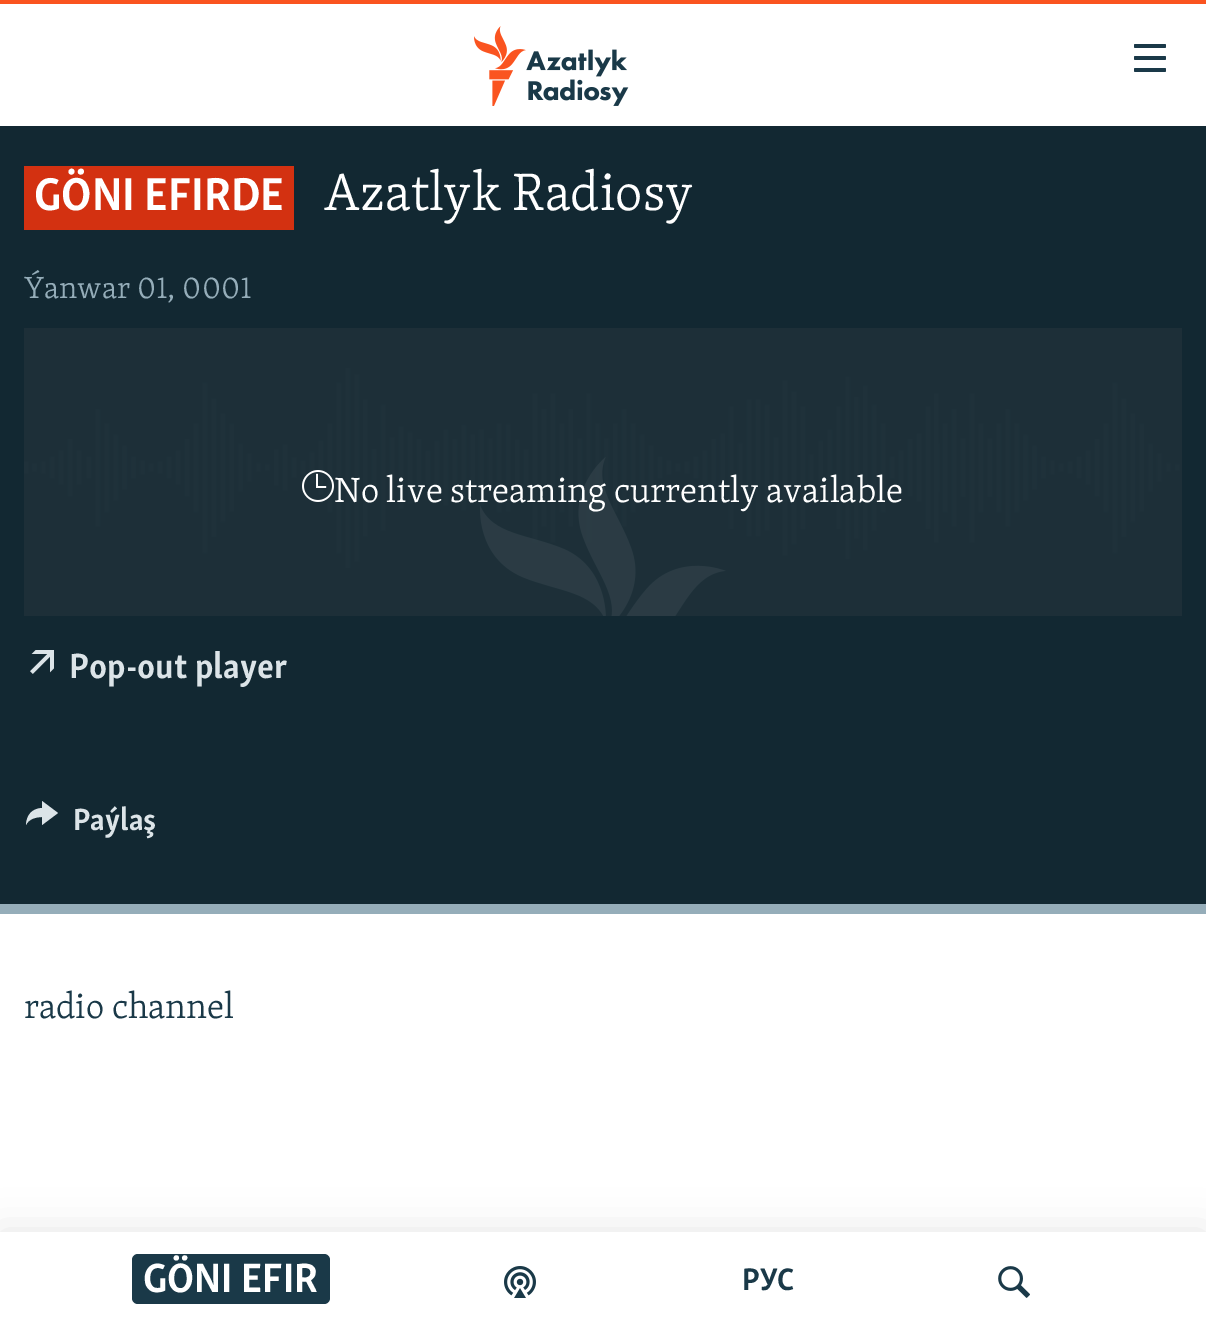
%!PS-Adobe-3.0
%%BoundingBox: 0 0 1206 1332
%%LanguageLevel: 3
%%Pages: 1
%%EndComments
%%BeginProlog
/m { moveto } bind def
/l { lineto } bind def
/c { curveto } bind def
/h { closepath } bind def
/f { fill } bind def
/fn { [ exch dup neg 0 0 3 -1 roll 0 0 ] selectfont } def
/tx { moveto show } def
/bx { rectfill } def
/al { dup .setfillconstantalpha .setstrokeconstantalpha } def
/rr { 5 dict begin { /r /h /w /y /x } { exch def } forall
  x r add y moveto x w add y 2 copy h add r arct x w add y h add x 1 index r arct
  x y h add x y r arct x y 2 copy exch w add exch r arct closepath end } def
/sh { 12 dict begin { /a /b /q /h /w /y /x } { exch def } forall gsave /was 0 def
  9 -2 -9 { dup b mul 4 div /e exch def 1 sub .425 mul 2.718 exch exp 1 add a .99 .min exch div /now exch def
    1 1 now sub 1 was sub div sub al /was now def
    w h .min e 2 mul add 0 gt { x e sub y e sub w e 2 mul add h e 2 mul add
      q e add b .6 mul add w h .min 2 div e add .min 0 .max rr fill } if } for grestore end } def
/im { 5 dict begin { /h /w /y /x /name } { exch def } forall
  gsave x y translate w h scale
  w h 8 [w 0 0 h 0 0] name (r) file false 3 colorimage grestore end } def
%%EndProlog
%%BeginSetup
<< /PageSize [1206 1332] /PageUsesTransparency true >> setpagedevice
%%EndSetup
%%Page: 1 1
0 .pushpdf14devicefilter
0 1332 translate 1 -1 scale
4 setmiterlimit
1 setgray
0 0 1206 1332 bx
0.071 0.157 0.196 setrgbcolor
0 126 1206 778 bx
0.584 0.678 0.725 setrgbcolor
0 904 1206 10 bx
0.827 0.192 0.067 setrgbcolor
24 166 270 64 bx
/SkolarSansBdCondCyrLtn-Bold 47.25 fn
1 setgray
(GÖNI EFIRDE) 34 210 tx
/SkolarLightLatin-Light 54 fn
(Azatlyk Radiosy) 324 210 tx
/SkolarLightLatin-Light 31.5 fn
0.584 0.678 0.725 setrgbcolor
(Ýanwar 01, 0001) 24 298 tx
0.114 0.184 0.22 setrgbcolor
24 328 1158 288 bx
(image0.raw) 24 368 1156 200 im
(image1.raw) 480 457 246 159 im
(image2.raw) 302 470 32 32 im
/SkolarLightLatin-Light 36 fn
1 setgray
(No live streaming currently available) 334 502 tx
(image3.raw) 30 650 24 24 im
/SkolarSansBdCondCyrLtn-Bold 36 fn
0.863 0.894 0.91 setrgbcolor
(Pop-out player) 69 678 tx
26 825 m 26.5 815 32 808.5 42 808 c 42 801 l 58 813 l 42 825 l 42 817 l 36 817 28.5 819 26 825 c h f
/SkolarSansBdCondCyrLtn-Bold 31.5 fn
(Paýlaş) 73 830 tx
/SkolarLightLatin-Light 36 fn
0.102 0.224 0.282 setrgbcolor
(radio channel) 24 1018 tx
0.98 0.329 0.125 setrgbcolor
0 0 1206 4 bx
(image4.raw) 474 26 155 80 im
(image5.raw) 1134 44 32 28 im
0 setgray
0 1232 1206 100 0 20 0.1 sh
1 setgray
0 1232 1206 100 bx
0.102 0.224 0.282 setrgbcolor
132 1254 198 50 6 rr f
/SkolarSansBdCondCyrLtn-Bold 42 fn
1 setgray
(GÖNI EFIR) 143 1292 tx
(image6.raw) 504 1266 32 32 im
/SkolarSansBdCondCyrLtn-Bold 32 fn
0.102 0.224 0.282 setrgbcolor
(РУС) 742 1290 tx
(image7.raw) 998 1266 32 32 im
.poppdf14devicefilter showpage
%%EOF
